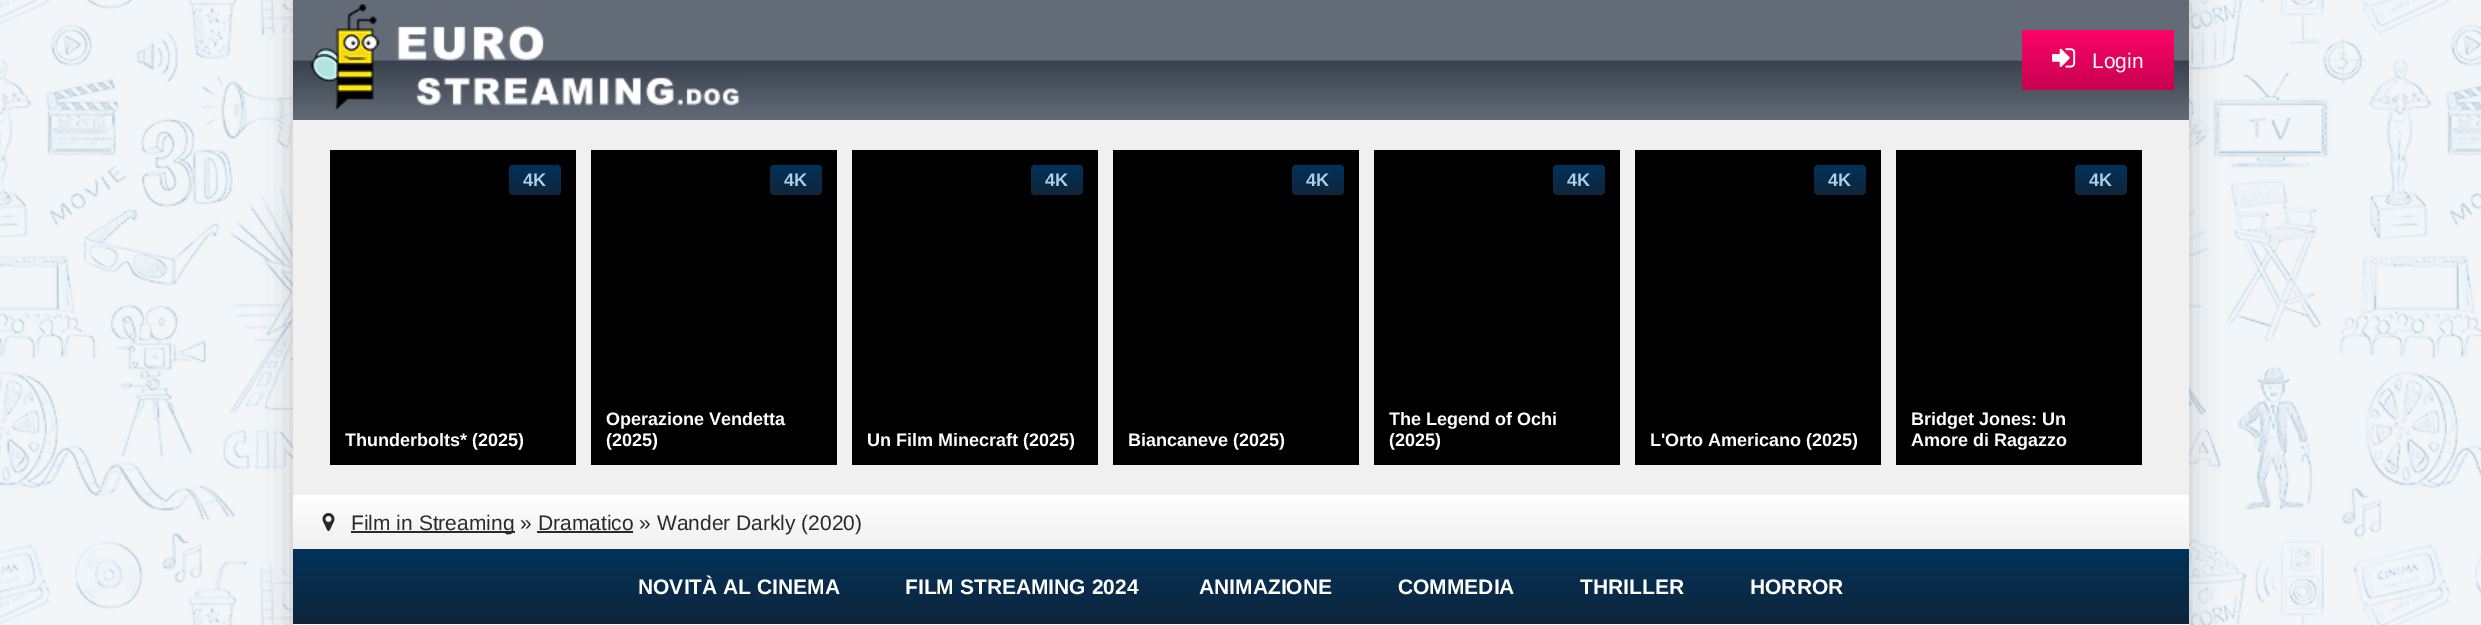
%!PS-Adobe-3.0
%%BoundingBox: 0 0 2481 625
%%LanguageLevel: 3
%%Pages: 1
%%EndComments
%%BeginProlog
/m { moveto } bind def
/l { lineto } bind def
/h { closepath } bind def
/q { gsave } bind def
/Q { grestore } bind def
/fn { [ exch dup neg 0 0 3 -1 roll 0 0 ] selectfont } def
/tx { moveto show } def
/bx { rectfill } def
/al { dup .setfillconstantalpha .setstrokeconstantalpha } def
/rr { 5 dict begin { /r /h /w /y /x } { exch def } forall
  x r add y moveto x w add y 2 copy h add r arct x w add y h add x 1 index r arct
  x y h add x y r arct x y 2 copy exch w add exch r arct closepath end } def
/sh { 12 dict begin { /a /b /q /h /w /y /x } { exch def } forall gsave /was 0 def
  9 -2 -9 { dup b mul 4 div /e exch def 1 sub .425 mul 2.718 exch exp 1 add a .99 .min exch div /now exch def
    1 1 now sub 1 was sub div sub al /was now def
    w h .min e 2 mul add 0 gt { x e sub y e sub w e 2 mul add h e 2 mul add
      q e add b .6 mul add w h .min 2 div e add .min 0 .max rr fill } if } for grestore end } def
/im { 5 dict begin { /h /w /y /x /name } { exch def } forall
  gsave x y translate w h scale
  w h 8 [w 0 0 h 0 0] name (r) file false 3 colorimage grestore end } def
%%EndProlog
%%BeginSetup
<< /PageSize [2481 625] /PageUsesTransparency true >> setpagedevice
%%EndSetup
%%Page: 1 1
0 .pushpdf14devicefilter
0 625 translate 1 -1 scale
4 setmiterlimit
1 setgray
0 0 2481 625 bx
(image0.raw) 0 0 2481 625 im
0 setgray
293 0 1896 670 0 15 0.2 sh
1 setgray
293 624 1896 1 bx
q 293 0 m 2189 0 l 2189 120 l 293 120 l h clip newpath
<< /ShadingType 2 /ColorSpace /DeviceRGB /Coords [1241 0 1241 120] /Extend [true true] /Function << /FunctionType 3 /Domain [0 1] /Functions [<< /FunctionType 2 /Domain [0 1] /C0 [0.388 0.42 0.467] /C1 [0.388 0.42 0.467] /N 1 >> << /FunctionType 2 /Domain [0 1] /C0 [0.388 0.42 0.467] /C1 [0.224 0.255 0.306] /N 1 >> << /FunctionType 2 /Domain [0 1] /C0 [0.224 0.255 0.306] /C1 [0.388 0.42 0.467] /N 1 >>] /Bounds [0.5 0.51] /Encode [0 1 0 1 0 1] >> >> shfill Q
(image1.raw) 310 4 430 106 im
q 2022 30 m 2174 30 l 2174 90 l 2022 90 l h clip newpath
<< /ShadingType 2 /ColorSpace /DeviceRGB /Coords [2098 30 2098 90] /Extend [true true] /Function << /FunctionType 2 /Domain [0 1] /C0 [0.984 0.02 0.408] /C1 [0.784 0.004 0.318] /N 1 >> >> shfill Q
(image2.raw) 2052 48 24 20 im
/LiberationSans-Regular 21 fn
(Login) 2092 68 tx
0.941 setgray
293 120 1896 375 bx
0 setgray
330 150 246 315 bx
q 509 165 52 30 6 rr clip newpath
<< /ShadingType 2 /ColorSpace /DeviceRGB /Coords [535 165 535 195] /Extend [true true] /Function << /FunctionType 2 /Domain [0 1] /C0 [0.008 0.196 0.353] /C1 [0.059 0.145 0.227] /N 1 >> >> shfill Q
/LiberationSans-Bold 18 fn
0.69 0.808 0.902 setrgbcolor
(4K) 523 186 tx
1 setgray
(Thunderbolts* \(2025\)) 345 446 tx
0 setgray
591 150 246 315 bx
q 770 165 52 30 6 rr clip newpath
<< /ShadingType 2 /ColorSpace /DeviceRGB /Coords [796 165 796 195] /Extend [true true] /Function << /FunctionType 2 /Domain [0 1] /C0 [0.008 0.196 0.353] /C1 [0.059 0.145 0.227] /N 1 >> >> shfill Q
0.69 0.808 0.902 setrgbcolor
(4K) 784 186 tx
1 setgray
(Operazione Vendetta) 606 425 tx
(\(2025\)) 606 446 tx
0 setgray
852 150 246 315 bx
q 1031 165 52 30 6 rr clip newpath
<< /ShadingType 2 /ColorSpace /DeviceRGB /Coords [1057 165 1057 195] /Extend [true true] /Function << /FunctionType 2 /Domain [0 1] /C0 [0.008 0.196 0.353] /C1 [0.059 0.145 0.227] /N 1 >> >> shfill Q
0.69 0.808 0.902 setrgbcolor
(4K) 1045 186 tx
1 setgray
(Un Film Minecraft \(2025\)) 867 446 tx
0 setgray
1113 150 246 315 bx
q 1292 165 52 30 6 rr clip newpath
<< /ShadingType 2 /ColorSpace /DeviceRGB /Coords [1318 165 1318 195] /Extend [true true] /Function << /FunctionType 2 /Domain [0 1] /C0 [0.008 0.196 0.353] /C1 [0.059 0.145 0.227] /N 1 >> >> shfill Q
0.69 0.808 0.902 setrgbcolor
(4K) 1306 186 tx
1 setgray
(Biancaneve \(2025\)) 1128 446 tx
0 setgray
1374 150 246 315 bx
q 1553 165 52 30 6 rr clip newpath
<< /ShadingType 2 /ColorSpace /DeviceRGB /Coords [1579 165 1579 195] /Extend [true true] /Function << /FunctionType 2 /Domain [0 1] /C0 [0.008 0.196 0.353] /C1 [0.059 0.145 0.227] /N 1 >> >> shfill Q
0.69 0.808 0.902 setrgbcolor
(4K) 1567 186 tx
1 setgray
(The Legend of Ochi) 1389 425 tx
(\(2025\)) 1389 446 tx
0 setgray
1635 150 246 315 bx
q 1814 165 52 30 6 rr clip newpath
<< /ShadingType 2 /ColorSpace /DeviceRGB /Coords [1840 165 1840 195] /Extend [true true] /Function << /FunctionType 2 /Domain [0 1] /C0 [0.008 0.196 0.353] /C1 [0.059 0.145 0.227] /N 1 >> >> shfill Q
0.69 0.808 0.902 setrgbcolor
(4K) 1828 186 tx
1 setgray
(L'Orto Americano \(2025\)) 1650 446 tx
0 setgray
1896 150 246 315 bx
q 2075 165 52 30 6 rr clip newpath
<< /ShadingType 2 /ColorSpace /DeviceRGB /Coords [2101 165 2101 195] /Extend [true true] /Function << /FunctionType 2 /Domain [0 1] /C0 [0.008 0.196 0.353] /C1 [0.059 0.145 0.227] /N 1 >> >> shfill Q
0.69 0.808 0.902 setrgbcolor
(4K) 2089 186 tx
1 setgray
(Bridget Jones: Un) 1911 425 tx
(Amore di Ragazzo) 1911 446 tx
q 293 495 m 2189 495 l 2189 549 l 293 549 l h clip newpath
<< /ShadingType 2 /ColorSpace /DeviceRGB /Coords [1241 495 1241 549] /Extend [true true] /Function << /FunctionType 2 /Domain [0 1] /C0 [1 1 1] /C1 [0.941 0.941 0.941] /N 1 >> >> shfill Q
(image3.raw) 322 513 13 18 im
0.165 setgray
351 531 164 2 bx
/LiberationSans-Regular 21 fn
(Film in Streaming » Dramatico » Wander Darkly \(2020\)) 351 530 tx
537 531 96 2 bx
q 293 549 m 2189 549 l 2189 624 l 293 624 l h clip newpath
<< /ShadingType 2 /ColorSpace /DeviceRGB /Coords [1241 549 1241 624] /Extend [true true] /Function << /FunctionType 2 /Domain [0 1] /C0 [0.008 0.196 0.353] /C1 [0.059 0.145 0.227] /N 1 >> >> shfill Q
/LiberationSans-Bold 21 fn
1 setgray
(NOVITÀ AL CINEMA) 638 594 tx
(FILM STREAMING 2024) 905 594 tx
(ANIMAZIONE) 1199 594 tx
(COMMEDIA) 1398 594 tx
(THRILLER) 1580 594 tx
(HORROR) 1750 594 tx
.poppdf14devicefilter showpage
%%EOF
